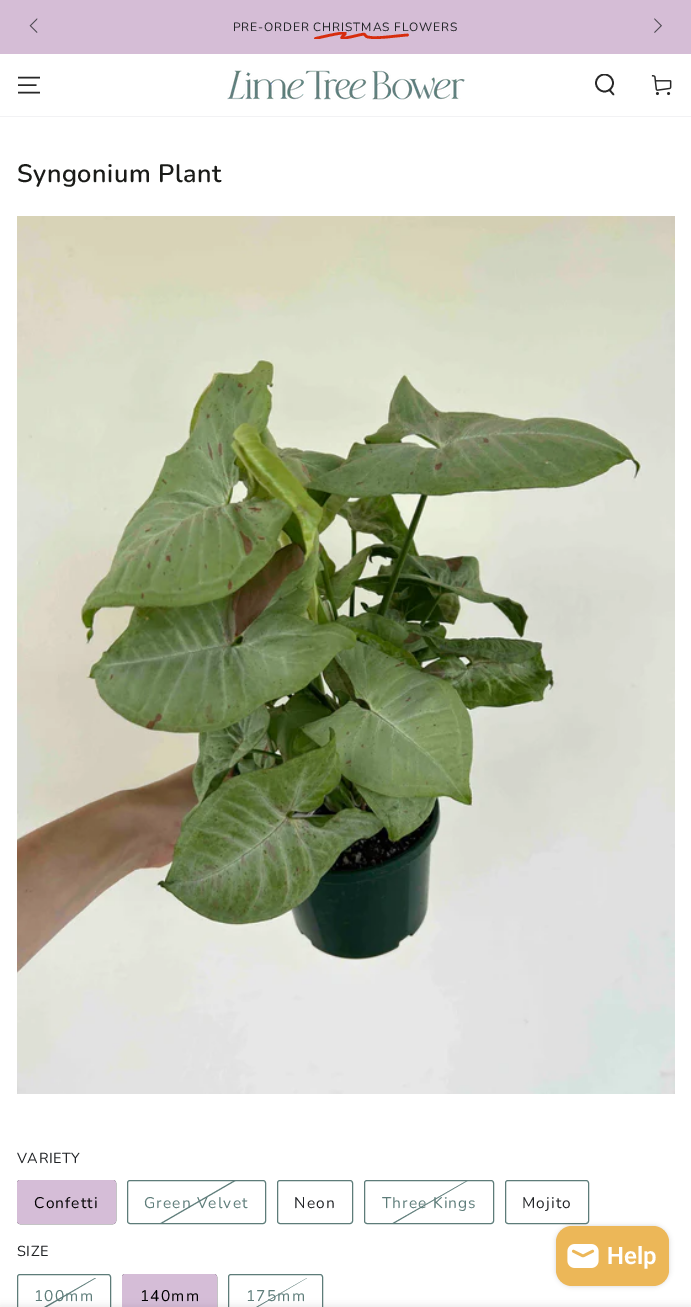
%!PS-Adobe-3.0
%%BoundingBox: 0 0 691 1307
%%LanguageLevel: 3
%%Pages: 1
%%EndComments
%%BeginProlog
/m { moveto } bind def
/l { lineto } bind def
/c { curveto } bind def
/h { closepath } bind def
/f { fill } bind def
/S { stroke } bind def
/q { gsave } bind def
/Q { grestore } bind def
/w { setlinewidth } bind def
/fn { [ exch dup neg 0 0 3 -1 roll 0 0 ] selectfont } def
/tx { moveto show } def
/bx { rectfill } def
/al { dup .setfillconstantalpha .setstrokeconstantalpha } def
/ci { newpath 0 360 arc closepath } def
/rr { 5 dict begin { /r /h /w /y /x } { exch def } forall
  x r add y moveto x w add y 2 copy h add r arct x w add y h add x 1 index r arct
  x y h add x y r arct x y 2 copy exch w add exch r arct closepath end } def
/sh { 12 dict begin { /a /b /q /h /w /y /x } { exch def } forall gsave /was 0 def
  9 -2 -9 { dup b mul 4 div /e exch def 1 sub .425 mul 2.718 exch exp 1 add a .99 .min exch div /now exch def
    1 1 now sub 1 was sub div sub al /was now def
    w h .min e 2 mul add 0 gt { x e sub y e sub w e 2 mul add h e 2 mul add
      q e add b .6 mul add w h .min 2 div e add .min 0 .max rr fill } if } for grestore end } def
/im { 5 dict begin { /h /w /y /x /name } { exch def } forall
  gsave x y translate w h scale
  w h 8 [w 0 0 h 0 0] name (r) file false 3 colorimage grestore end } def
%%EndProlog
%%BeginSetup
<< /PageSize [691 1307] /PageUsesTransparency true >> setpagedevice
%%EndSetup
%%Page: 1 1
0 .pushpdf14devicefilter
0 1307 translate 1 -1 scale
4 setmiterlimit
1 setgray
0 0 691 1307 bx
0.835 0.741 0.839 setrgbcolor
0 0 691 54 bx
(image0.raw) 29 18 9 15 im
(image1.raw) 654 18 8 15 im
/Nunito-ExtraLight 12 fn
0.129 0.137 0.149 setrgbcolor
233 31 m 0.85 0 (PRE-ORDER CHRISTMAS FLOWERS) ashow
q
313 32 145 7 rectclip
0.843 0.173 0.051 setrgbcolor
2.6 w
1 setlinecap
315.5 38.5 m 315.5 38.5 350 30 345 34 c 340 38.5 338.5 40 359 35 c 371.5 32 357 38.5 378.5 37.5 c 385.5 37.5 395 36 407.5 35 c S
Q
0.949 0.949 0.957 setrgbcolor
0 116 691 1 bx
0.157 setgray
1.5 w
18 92.5 m 40 92.5 l 18 85 m 36.5 85 l 18 77.5 m 40 77.5 l S
(image2.raw) 227 70 238 30 im
q
594 74 22 22 rectclip
1.7 w
604.5 83 8.5 ci S
Q
1.7 w
1 setlinecap
609.5 90 m 613.5 94.5 l S
(image3.raw) 651 75 21 21 im
/Nunito-SemiBold 25.25 fn
0.102 0.106 0.094 setrgbcolor
17 182 m 0.5 0 (Syngonium Plant) ashow
(image4.raw) 17 216 658 878 im
/Nunito-ExtraLight 14.5 fn
0.129 0.137 0.149 setrgbcolor
17 1163 m 0.5 0 (VARIETY) ashow
2 w
0 setlinecap
18 1181 97 42 2 rr S
0.835 0.741 0.843 setrgbcolor
17 1180 99 44 3 rr f
/Nunito-ExtraLight 15.5 fn
0 setgray
34 1208 m 1.1 0 (Confetti) ashow
0.365 0.486 0.475 setrgbcolor
1 w
127.5 1180.5 138 43 2.5 rr S
237 1180 m 161 1224 l 159 1224 l 235 1180 l h f
144 1208 m 1.1 0 (Green Velvet) ashow
277.5 1180.5 75 43 2.5 rr S
0.129 0.137 0.149 setrgbcolor
294 1208 m 1.1 0 (Neon) ashow
0.365 0.486 0.475 setrgbcolor
364.5 1180.5 129 43 2.5 rr S
469 1180 m 393 1224 l 391 1224 l 468 1180 l h f
382 1208 m 1.1 0 (Three Kings) ashow
505.5 1180.5 83 43 2.5 rr S
0.129 0.137 0.149 setrgbcolor
522 1208 m 1.1 0 (Mojito) ashow
/Nunito-ExtraLight 14.5 fn
17 1256 m 0.5 0 (SIZE) ashow
0.365 0.486 0.475 setrgbcolor
17.5 1274.5 93 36 2.5 rr S
32 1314 m 95 1278 l 96 1278 l 33 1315 l h f
/Nunito-ExtraLight 15.5 fn
34 1301 m 1.1 0 (100mm) ashow
0.129 0.137 0.149 setrgbcolor
2 w
123 1275 93 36 2 rr S
0.835 0.741 0.843 setrgbcolor
122 1274 95 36 3 rr f
0 setgray
140 1301 m 1.1 0 (140mm) ashow
0.365 0.486 0.475 setrgbcolor
1 w
228.5 1274.5 94 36 2.5 rr S
244 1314 m 307 1278 l 244 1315 l h f
246 1301 m 1.1 0 (175mm) ashow
0 setgray
556 1226 113 60 16 2.5 0.15 sh
0.925 0.718 0.345 setrgbcolor
556 1226 113 60 16 rr f
(image5.raw) 567 1244 32 24 im
/Roboto-SemiBold 24 fn
1 setgray
(Help) 607 1264 tx
0.129 0.137 0.149 setrgbcolor
0 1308 691 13 0 4.5 0.15 sh
.poppdf14devicefilter showpage
%%EOF
